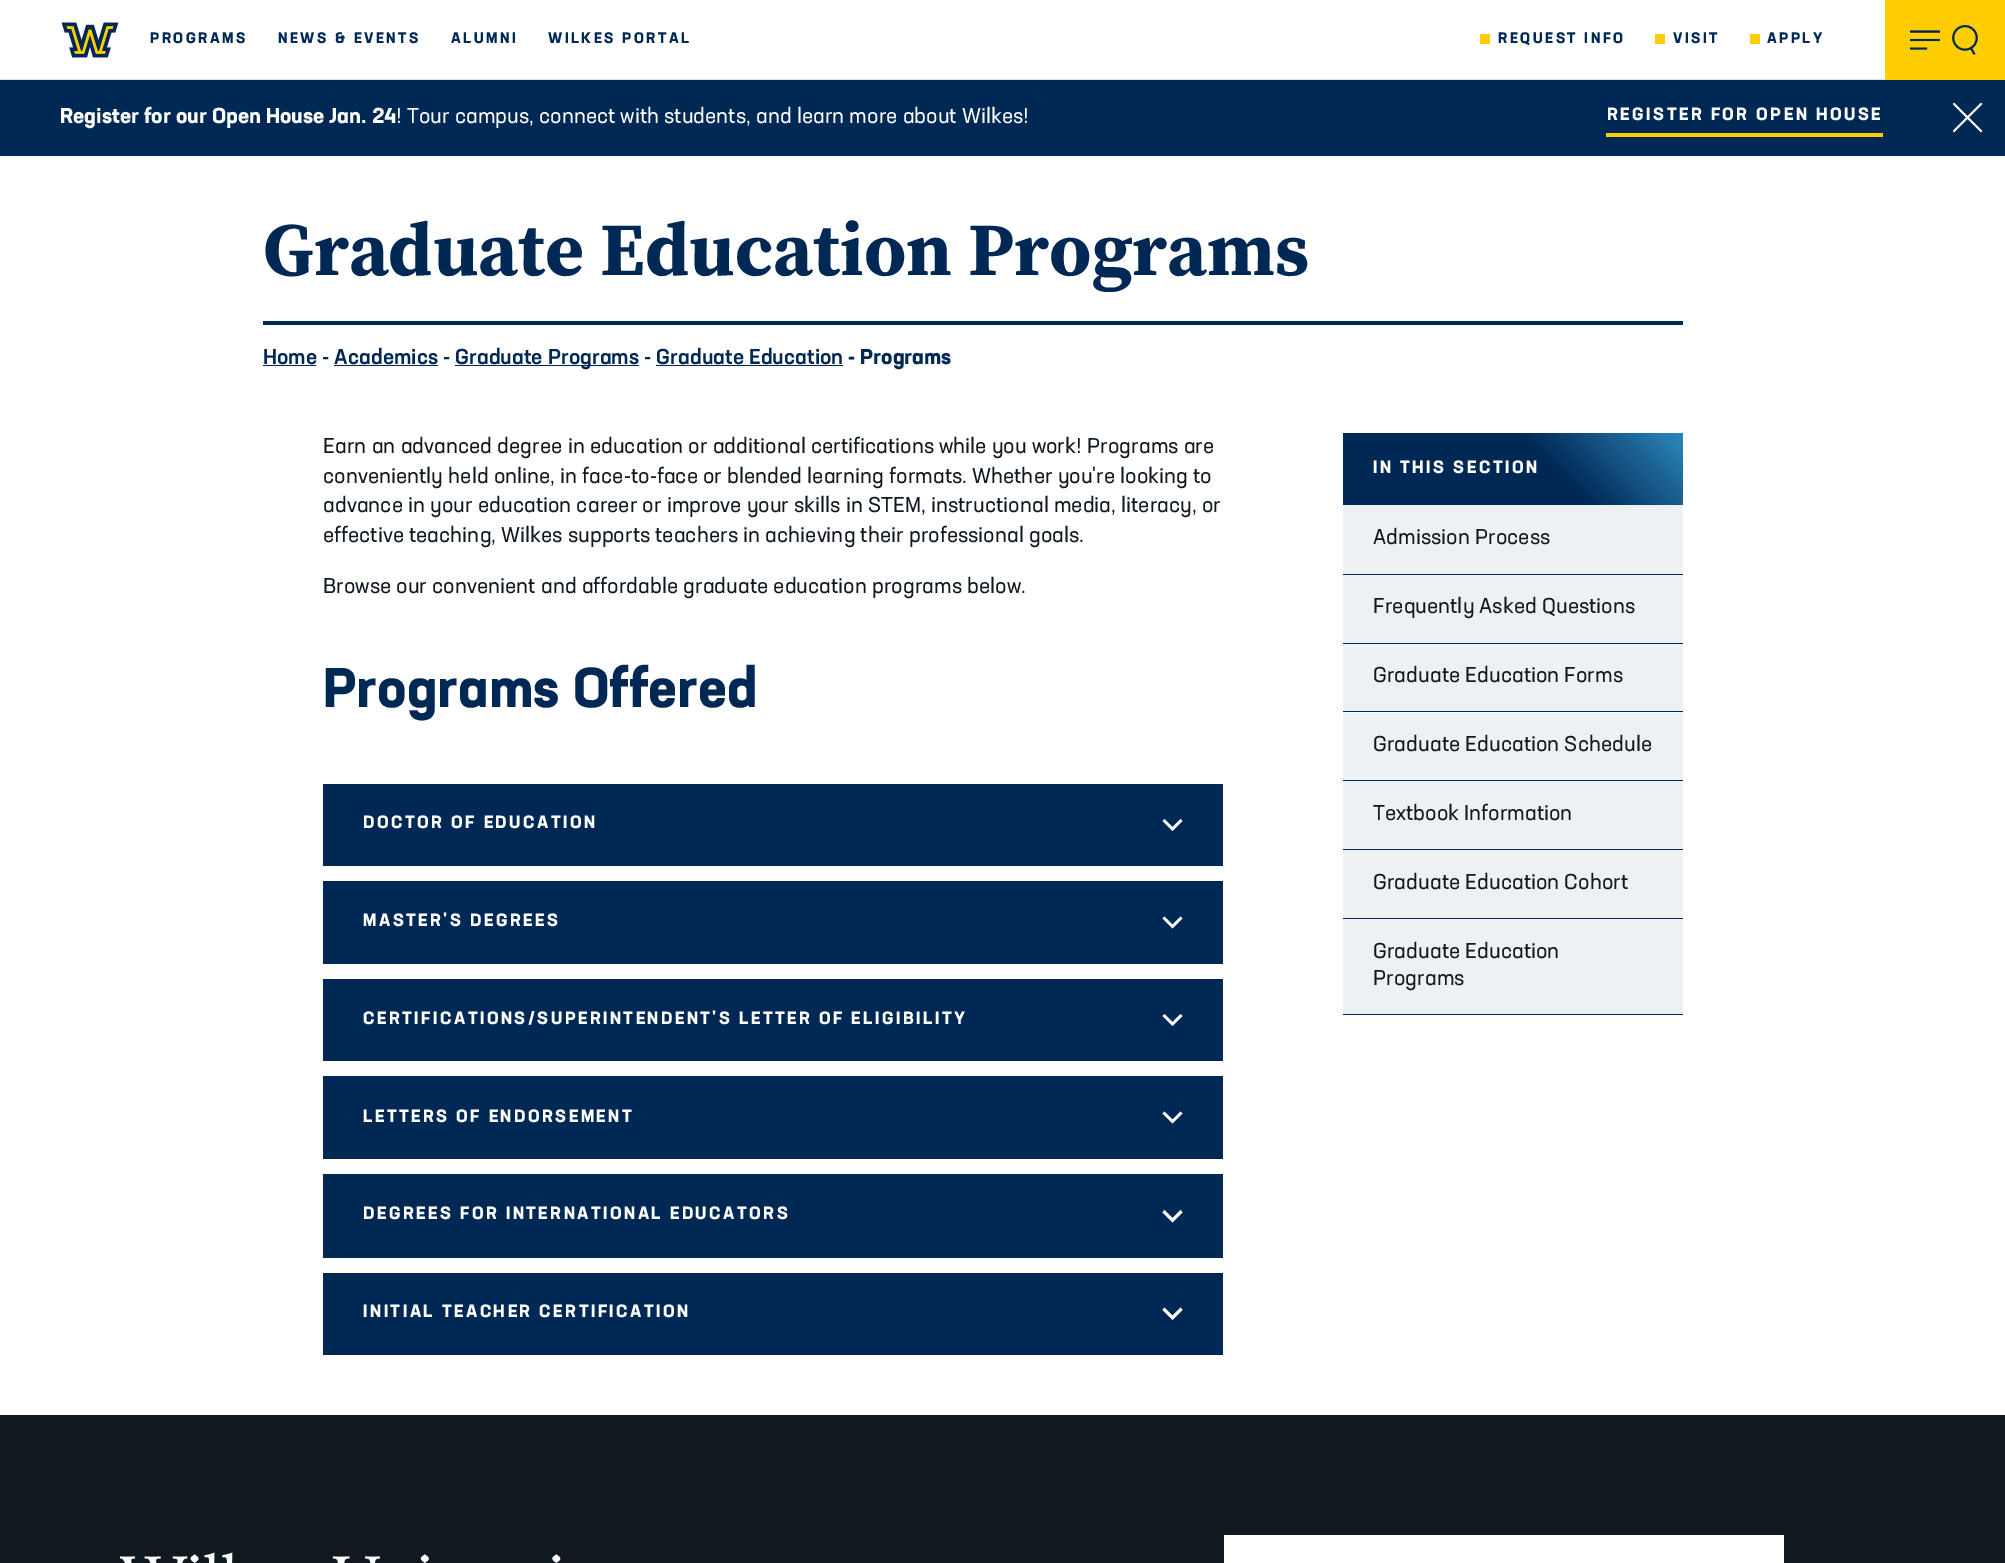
%!PS-Adobe-3.0
%%BoundingBox: 0 0 2005 1563
%%LanguageLevel: 3
%%Pages: 1
%%EndComments
%%BeginProlog
/m { moveto } bind def
/l { lineto } bind def
/h { closepath } bind def
/f { fill } bind def
/q { gsave } bind def
/Q { grestore } bind def
/fn { [ exch dup neg 0 0 3 -1 roll 0 0 ] selectfont } def
/tx { moveto show } def
/bx { rectfill } def
/im { 5 dict begin { /h /w /y /x /name } { exch def } forall
  gsave x y translate w h scale
  w h 8 [w 0 0 h 0 0] name (r) file false 3 colorimage grestore end } def
%%EndProlog
%%BeginSetup
<< /PageSize [2005 1563] >> setpagedevice
%%EndSetup
%%Page: 1 1
0 1563 translate 1 -1 scale
4 setmiterlimit
1 setgray
0 0 2005 1563 bx
0.882 setgray
0 79 1885 1 bx
(image0.raw) 61 22 58 36 im
/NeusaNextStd-Bold 15 fn
0 0.157 0.333 setrgbcolor
150 43 m 2.5 0 (PROGRAMS) ashow
278 43 m 2.5 0 (NEWS & EVENTS) ashow
451 43 m 2.5 0 (ALUMNI) ashow
548 43 m 2.5 0 (WILKES PORTAL) ashow
1 0.804 0 setrgbcolor
1480 34 10 10 bx
0 0.157 0.333 setrgbcolor
1498 43 m 2.5 0 (REQUEST INFO) ashow
1 0.804 0 setrgbcolor
1655 34 10 10 bx
0 0.157 0.333 setrgbcolor
1673 43 m 2.5 0 (VISIT) ashow
1 0.804 0 setrgbcolor
1750 34 10 10 bx
0 0.157 0.333 setrgbcolor
1767 43 m 2.5 0 (APPLY) ashow
1 0.804 0 setrgbcolor
1885 0 120 80 bx
(image1.raw) 1910 30 30 20 im
(image2.raw) 1952 25 26 30 im
0 0.157 0.333 setrgbcolor
0 80 2005 76 bx
/NeusaNextStd-Bold 21.25 fn
1 setgray
(Register for our Open House Jan. 24) 60 123 tx
/NeusaNextStd-Regular 21.25 fn
(! Tour campus, connect with students, and learn more about Wilkes!) 396 123 tx
1 0.804 0 setrgbcolor
1606 133 277 4 bx
/NeusaNextStd-Bold 17.5 fn
1 setgray
1607 120 m 2.5 0 (REGISTER FOR OPEN HOUSE) ashow
(image3.raw) 1953 103 30 30 im
/SourceSerifPro-Bold 75 fn
0 0.157 0.333 setrgbcolor
(Graduate Education Programs) 263 275 tx
263 321 1420 4 bx
/NeusaNextStd-Medium 21.25 fn
(Home - Academics -) 263 364 tx
263 365 53 1 bx
455 365 184 1 bx
(Graduate Programs - Graduate Education) 455 364 tx
/NeusaNextStd-Bold 21.25 fn
(- Programs) 848 364 tx
334 365 104 1 bx
656 365 187 1 bx
/NeusaNextStd-Regular 21.25 fn
0.063 0.094 0.125 setrgbcolor
(Earn an advanced degree in education or additional certifications while you work! Programs are) 323 453 tx
(conveniently held online, in face-to-face or blended learning formats. Whether you're looking to) 323 483 tx
(advance in your education career or improve your skills in STEM, instructional media, literacy, or) 323 512 tx
(effective teaching, Wilkes supports teachers in achieving their professional goals.) 323 542 tx
(Browse our convenient and affordable graduate education programs below.) 323 593 tx
/NeusaNextStd-Bold 55 fn
0 0.157 0.333 setrgbcolor
(Programs Offered) 323 707 tx
323 784 900 82 bx
/NeusaNextStd-Bold 17.5 fn
1 setgray
363 828 m 2.5 0 (DOCTOR OF EDUCATION) ashow
1162.5 821 m 1164.5 819 l 1172.5 827 l 1180.5 819 l 1182.5 821 l 1172.5 831 l h f
0 0.157 0.333 setrgbcolor
323 881 900 83 bx
1 setgray
363 926 m 2.5 0 (MASTER'S DEGREES) ashow
1162.5 918.5 m 1164.5 916.5 l 1172.5 924.5 l 1180.5 916.5 l 1182.5 918.5 l 1172.5 928.5 l h f
0 0.157 0.333 setrgbcolor
323 979 900 82 bx
1 setgray
363 1024 m 2.5 0 (CERTIFICATIONS/SUPERINTENDENT'S LETTER OF ELIGIBILITY) ashow
1162.5 1016 m 1164.5 1014 l 1172.5 1022 l 1180.5 1014 l 1182.5 1016 l 1172.5 1026 l h f
0 0.157 0.333 setrgbcolor
323 1076 900 83 bx
1 setgray
363 1122 m 2.5 0 (LETTERS OF ENDORSEMENT) ashow
1162.5 1113.5 m 1164.5 1111.5 l 1172.5 1119.5 l 1180.5 1111.5 l 1182.5 1113.5 l 1172.5 1123.5 l h f
0 0.157 0.333 setrgbcolor
323 1174 900 84 bx
1 setgray
363 1219 m 2.5 0 (DEGREES FOR INTERNATIONAL EDUCATORS) ashow
1162.5 1212.5 m 1164.5 1210 l 1172.5 1218 l 1180.5 1210 l 1182.5 1212.5 l 1172.5 1222.5 l h f
0 0.157 0.333 setrgbcolor
323 1273 900 82 bx
1 setgray
363 1317 m 2.5 0 (INITIAL TEACHER CERTIFICATION) ashow
1162.5 1310 m 1164.5 1307.5 l 1172.5 1315.5 l 1180.5 1307.5 l 1182.5 1310 l 1172.5 1320 l h f
q 1343 433 m 1683 433 l 1683 505 l 1343 505 l h clip newpath
<< /ShadingType 2 /ColorSpace /DeviceRGB /Coords [1409 572 1657 324] /Extend [true true] /Function << /FunctionType 3 /Domain [0 1] /Functions [<< /FunctionType 2 /Domain [0 1] /C0 [0 0.157 0.333] /C1 [0 0.157 0.333] /N 1 >> << /FunctionType 2 /Domain [0 1] /C0 [0 0.157 0.333] /C1 [0.267 0.722 0.953] /N 1 >>] /Bounds [0.5] /Encode [0 1 0 1] >> >> shfill Q
1373 473 m 2.5 0 (IN THIS SECTION) ashow
0 0.157 0.333 setrgbcolor
1343 574 340 1 bx
0.929 0.945 0.953 setrgbcolor
1343 505 340 69 bx
/NeusaNextStd-Regular 21.25 fn
0.063 0.094 0.125 setrgbcolor
(Admission Process) 1373 544 tx
0 0.157 0.333 setrgbcolor
1343 643 340 1 bx
0.929 0.945 0.953 setrgbcolor
1343 575 340 68 bx
0.063 0.094 0.125 setrgbcolor
(Frequently Asked Questions) 1373 613 tx
0 0.157 0.333 setrgbcolor
1343 711 340 1 bx
0.929 0.945 0.953 setrgbcolor
1343 644 340 67 bx
0.063 0.094 0.125 setrgbcolor
(Graduate Education Forms) 1373 682 tx
0 0.157 0.333 setrgbcolor
1343 780 340 1 bx
0.929 0.945 0.953 setrgbcolor
1343 713 340 67 bx
0.063 0.094 0.125 setrgbcolor
(Graduate Education Schedule) 1373 751 tx
0 0.157 0.333 setrgbcolor
1343 849 340 1 bx
0.929 0.945 0.953 setrgbcolor
1343 781 340 68 bx
0.063 0.094 0.125 setrgbcolor
(Textbook Information) 1373 820 tx
0 0.157 0.333 setrgbcolor
1343 918 340 1 bx
0.929 0.945 0.953 setrgbcolor
1343 850 340 68 bx
0.063 0.094 0.125 setrgbcolor
(Graduate Education Cohort) 1373 889 tx
0 0.157 0.333 setrgbcolor
1343 1014 340 1 bx
0.929 0.945 0.953 setrgbcolor
1343 919 340 95 bx
0.063 0.094 0.125 setrgbcolor
(Graduate Education) 1373 958 tx
(Programs) 1373 985 tx
0 1415 2005 148 bx
(image4.raw) 120 1552 441 11 im
1 setgray
1224 1535 560 28 bx
showpage
%%EOF
